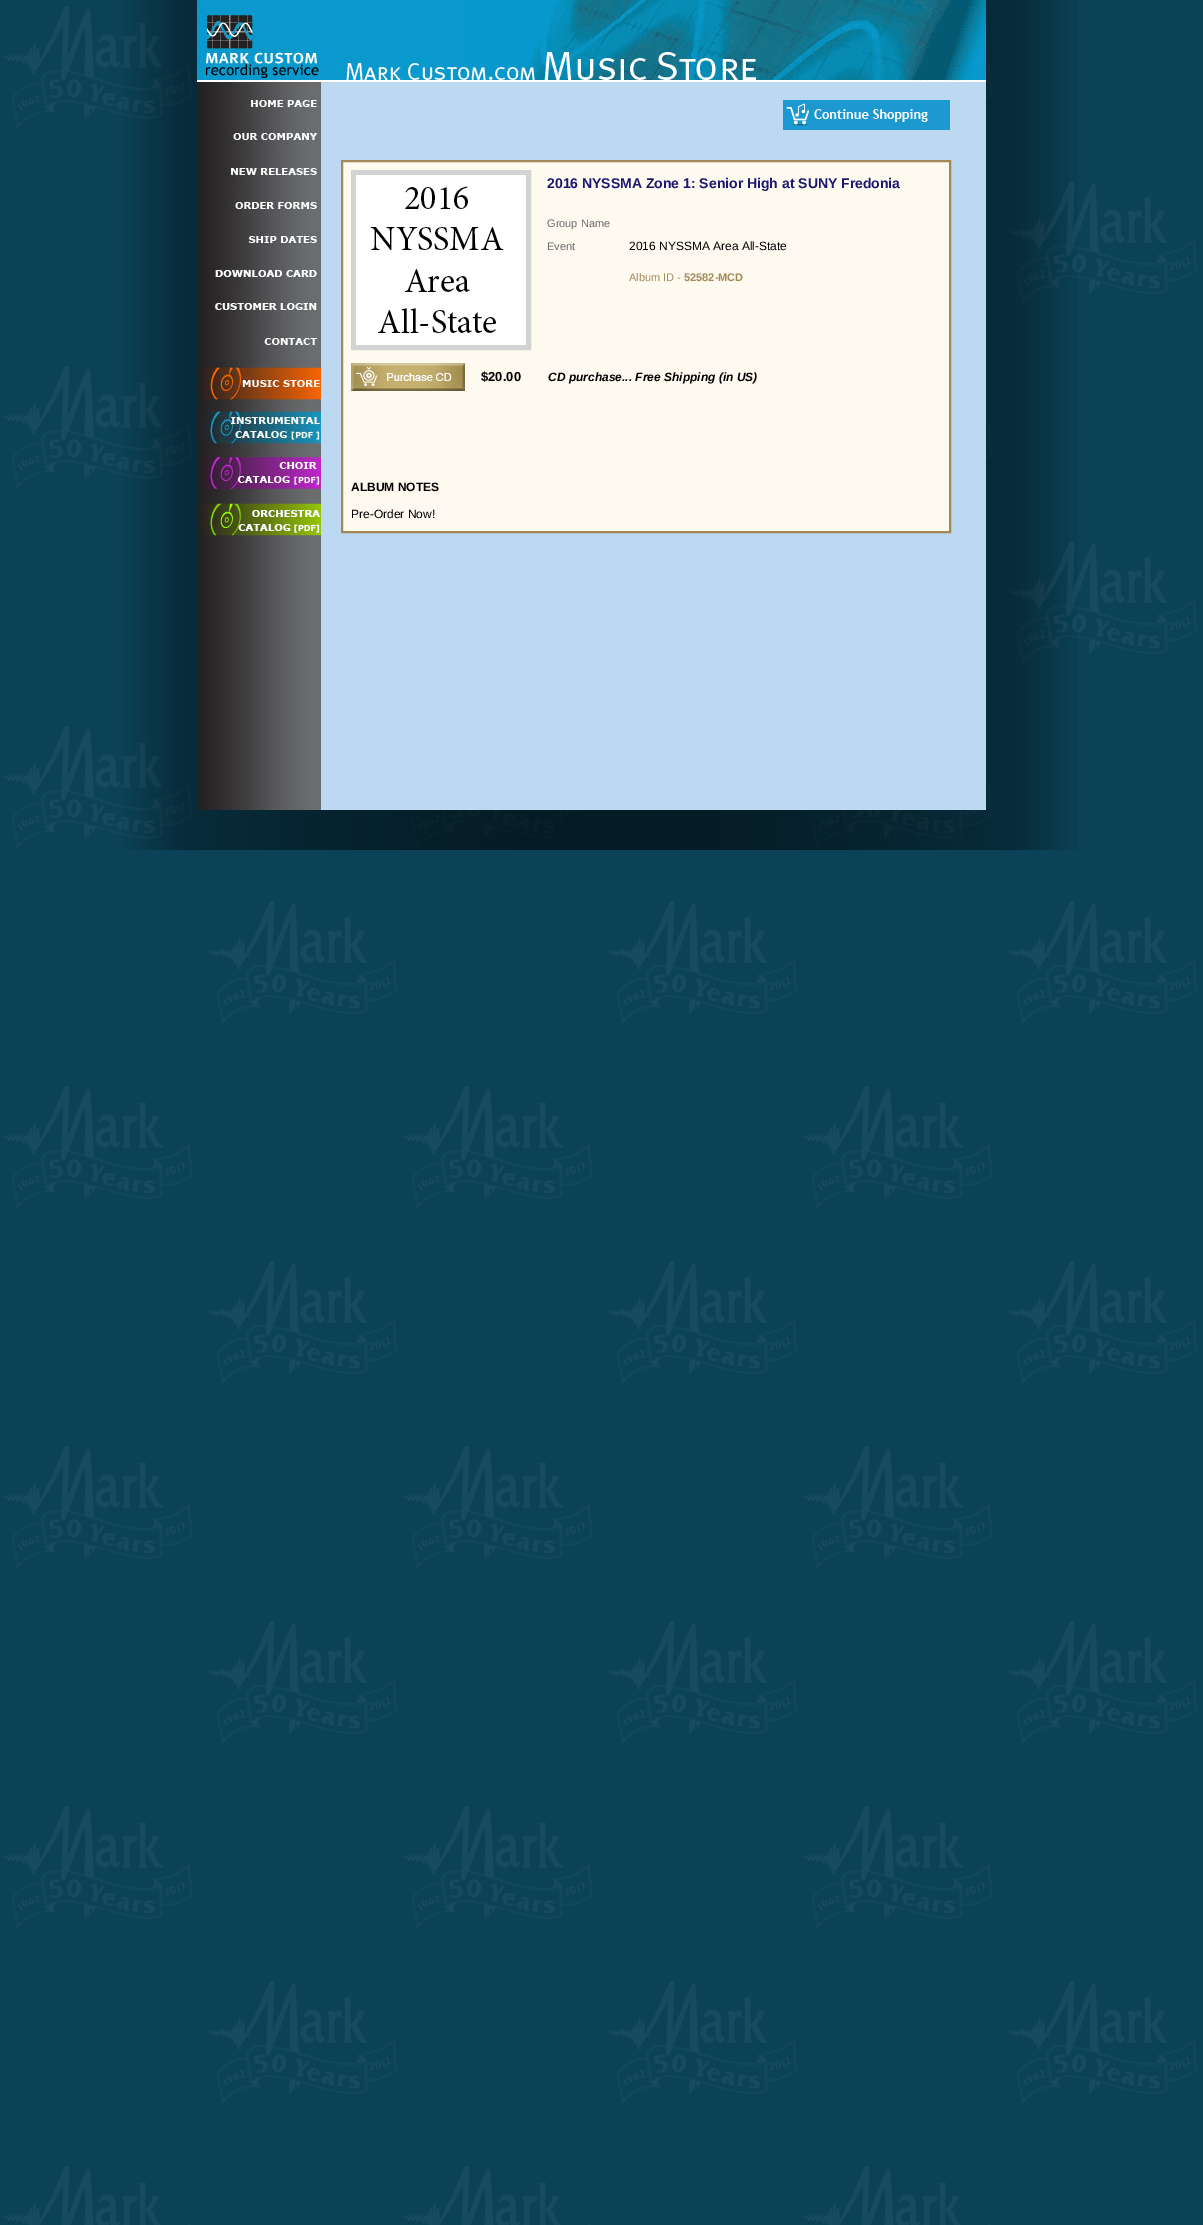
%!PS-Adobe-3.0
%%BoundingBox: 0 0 1203 2225
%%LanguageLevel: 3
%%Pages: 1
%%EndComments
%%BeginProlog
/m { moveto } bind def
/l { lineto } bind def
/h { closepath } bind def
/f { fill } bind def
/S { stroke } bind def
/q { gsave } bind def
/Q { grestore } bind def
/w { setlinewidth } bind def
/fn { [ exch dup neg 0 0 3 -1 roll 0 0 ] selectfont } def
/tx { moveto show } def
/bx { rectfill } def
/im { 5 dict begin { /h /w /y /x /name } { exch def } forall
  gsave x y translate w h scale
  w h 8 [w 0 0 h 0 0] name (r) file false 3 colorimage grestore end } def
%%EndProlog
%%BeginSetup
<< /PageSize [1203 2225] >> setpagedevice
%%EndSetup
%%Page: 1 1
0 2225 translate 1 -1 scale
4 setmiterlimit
0.043 0.259 0.341 setrgbcolor
0 0 1203 2225 bx
(image0.raw) 4 6 1193 2219 im
(image1.raw) 123 0 955 850 im
(image2.raw) 197 82 124 728 im
(image3.raw) 197 0 124 82 im
(image4.raw) 246 100 71 8 im
(image5.raw) 229 129 88 16 im
(image6.raw) 229 165 88 16 im
(image7.raw) 229 198 88 16 im
(image8.raw) 245 232 72 16 im
(image9.raw) 213 267 104 16 im
(image10.raw) 213 299 104 16 im
(image11.raw) 261 334 56 16 im
(image12.raw) 199 361 122 43 im
(image13.raw) 203 411 118 37 im
(image14.raw) 202 456 119 34 im
(image15.raw) 199 502 122 36 im
0.737 0.851 0.945 setrgbcolor
321 82 665 728 bx
(image16.raw) 321 0 665 82 im
(image17.raw) 783 100 167 30 im
1 0.98 0.941 setrgbcolor
342 161 m 950 161 l 950 532 l 342 532 l h q f Q
0.643 0.533 0.349 setrgbcolor
2 w
S
0.827 setgray
5 w
353.5 172.5 175 175 rectstroke
(image18.raw) 356 175 170 170 im
/LiberationSans-Bold 14 fn
0.098 0.098 0.439 setrgbcolor
(2016 NYSSMA Zone 1: Senior High at SUNY Fredonia) 547 188 tx
/LiberationSans-Regular 11 fn
0.412 setgray
(Group Name) 547 227 tx
(Event) 547 250 tx
/LiberationSans-Regular 12 fn
0 setgray
(2016 NYSSMA Area All-State) 629 250 tx
/LiberationSans-Regular 11 fn
0.643 0.533 0.349 setrgbcolor
(Album ID -) 629 281 tx
/LiberationSans-Bold 11 fn
(52582-MCD) 684 281 tx
(image19.raw) 351 363 114 28 im
/LiberationSans-Bold 13 fn
0 setgray
($20.00) 481 381 tx
/LiberationSans-BoldItalic 12 fn
(CD purchase... Free Shipping \(in US\)) 548 381 tx
/LiberationSans-Bold 12 fn
(ALBUM NOTES) 351 491 tx
/LiberationSans-Regular 12 fn
(Pre-Order Now!) 351 518 tx
showpage
%%EOF
